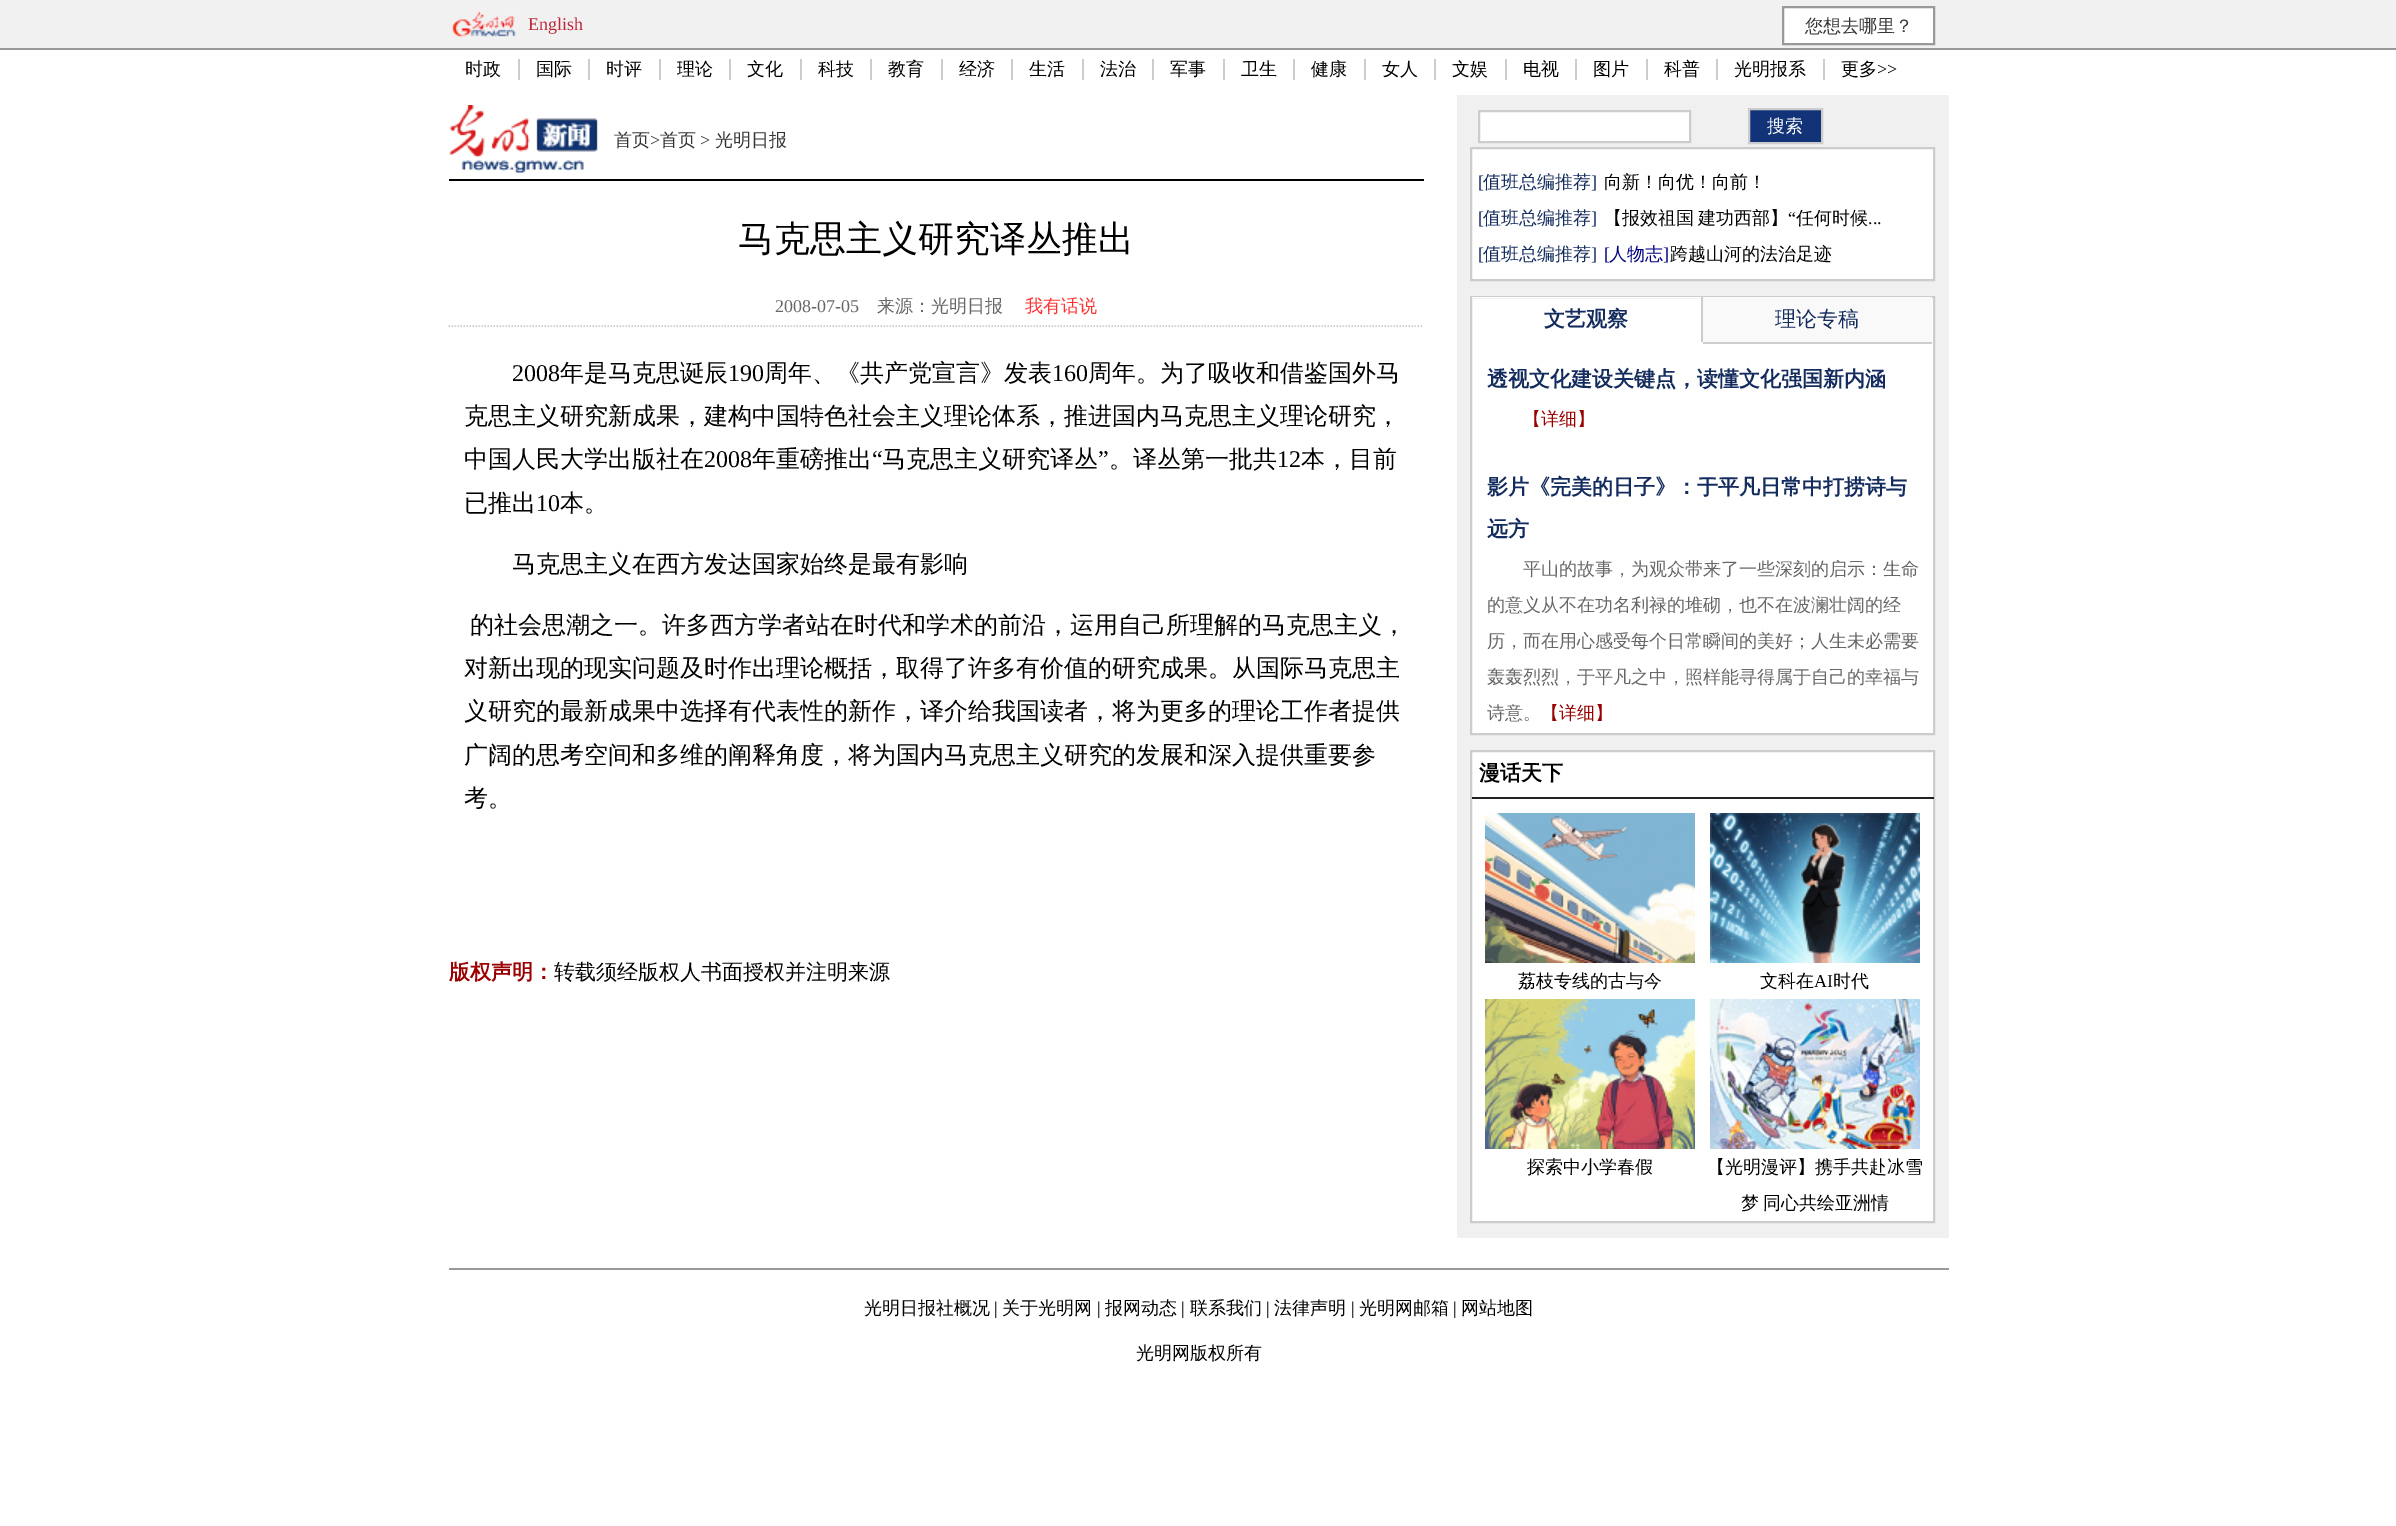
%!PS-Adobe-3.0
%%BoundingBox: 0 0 2396 1526
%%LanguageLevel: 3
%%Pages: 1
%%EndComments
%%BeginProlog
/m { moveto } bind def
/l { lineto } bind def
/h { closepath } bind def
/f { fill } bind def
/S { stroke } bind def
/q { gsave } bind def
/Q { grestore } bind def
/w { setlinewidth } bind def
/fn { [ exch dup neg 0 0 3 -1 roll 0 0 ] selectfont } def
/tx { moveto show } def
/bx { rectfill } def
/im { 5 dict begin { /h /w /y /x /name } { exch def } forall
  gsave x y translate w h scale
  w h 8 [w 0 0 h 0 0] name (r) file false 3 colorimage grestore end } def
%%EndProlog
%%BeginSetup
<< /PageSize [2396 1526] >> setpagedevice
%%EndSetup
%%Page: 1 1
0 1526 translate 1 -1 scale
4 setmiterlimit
1 setgray
0 0 2396 1526 bx
0.945 setgray
0 0 2396 48 bx
0.6 setgray
0 48 2396 2 bx
(image0.raw) 452 10 65 28 im
/LiberationSerif-Regular 18 fn
0.733 0.153 0.216 setrgbcolor
(English) 528 30 tx
1 setgray
1783 7 m 1934 7 l 1934 44 l 1783 44 l h q f Q
0.6 setgray
2 w
S
/WenQuanYiZenHei-Medium 18 fn
0.2 setgray
(您想去哪里？) 1805 32 tx
0.8 setgray
518 59 2 21 bx
0 setgray
(时政) 465 75 tx
0.8 setgray
588 59 2 21 bx
0 setgray
(国际) 536 75 tx
0.8 setgray
659 59 2 21 bx
0 setgray
(时评) 606 75 tx
0.8 setgray
729 59 2 21 bx
0 setgray
(理论) 677 75 tx
0.8 setgray
800 59 2 21 bx
0 setgray
(文化) 747 75 tx
0.8 setgray
870 59 2 21 bx
0 setgray
(科技) 818 75 tx
0.8 setgray
941 59 2 21 bx
0 setgray
(教育) 888 75 tx
0.8 setgray
1011 59 2 21 bx
0 setgray
(经济) 959 75 tx
0.8 setgray
1082 59 2 21 bx
0 setgray
(生活) 1029 75 tx
0.8 setgray
1152 59 2 21 bx
0 setgray
(法治) 1100 75 tx
0.8 setgray
1223 59 2 21 bx
0 setgray
(军事) 1170 75 tx
0.8 setgray
1293 59 2 21 bx
0 setgray
(卫生) 1241 75 tx
0.8 setgray
1364 59 2 21 bx
0 setgray
(健康) 1311 75 tx
0.8 setgray
1434 59 2 21 bx
0 setgray
(女人) 1382 75 tx
0.8 setgray
1505 59 2 21 bx
0 setgray
(文娱) 1452 75 tx
0.8 setgray
1575 59 2 21 bx
0 setgray
(电视) 1523 75 tx
0.8 setgray
1646 59 2 21 bx
0 setgray
(图片) 1593 75 tx
0.8 setgray
1716 59 2 21 bx
0 setgray
(科普) 1664 75 tx
0.8 setgray
1823 59 2 21 bx
0 setgray
(光明报系) 1734 75 tx
(更多) 1841 75 tx
/LiberationSerif-Regular 18 fn
(>>) 1877 75 tx
449 179 975 2 bx
(image1.raw) 449 105 149 68 im
/WenQuanYiZenHei-Medium 18 fn
0.2 setgray
(首页) 614 146 tx
/LiberationSerif-Regular 18 fn
(>) 650 146 tx
/WenQuanYiZenHei-Medium 18 fn
(首页) 660 146 tx
/LiberationSerif-Regular 18 fn
(>) 700 146 tx
/WenQuanYiZenHei-Medium 18 fn
(光明日报) 715 146 tx
/WenQuanYiZenHei-Medium 36 fn
0 setgray
(马克思主义研究译丛推出) 738 251 tx
0.8 setgray
1.5 w
[1.5 1.5] 0 setdash
448.5 326 m 1423.5 326 l S
/LiberationSerif-Regular 18 fn
0.4 setgray
(2008-07-05) 775 312 tx
/WenQuanYiZenHei-Medium 18 fn
(来源：光明日报) 877 312 tx
1 0.2 0.2 setrgbcolor
(我有话说) 1025 312 tx
/LiberationSerif-Regular 24 fn
0 setgray
(2008) 512 381 tx
/WenQuanYiZenHei-Medium 24 fn
(年是马克思诞辰) 560 381 tx
/LiberationSerif-Regular 24 fn
(190) 728 381 tx
/WenQuanYiZenHei-Medium 24 fn
(周年、《共产党宣言》发表) 764 381 tx
/LiberationSerif-Regular 24 fn
(160) 1052 381 tx
/WenQuanYiZenHei-Medium 24 fn
(周年。为了吸收和借鉴国外马) 1088 381 tx
(克思主义研究新成果，建构中国特色社会主义理论体系，推进国内马克思主义理论研究，) 464 424 tx
(中国人民大学出版社在) 464 467 tx
/LiberationSerif-Regular 24 fn
(2008) 704 467 tx
/WenQuanYiZenHei-Medium 24 fn
(年重磅推出) 752 467 tx
/LiberationSerif-Regular 24 fn
(“) 872 467 tx
/WenQuanYiZenHei-Medium 24 fn
(马克思主义研究译丛) 882 467 tx
/LiberationSerif-Regular 24 fn
(”) 1098 467 tx
/WenQuanYiZenHei-Medium 24 fn
(。译丛第一批共) 1109 467 tx
/LiberationSerif-Regular 24 fn
(12) 1277 467 tx
/WenQuanYiZenHei-Medium 24 fn
(本，目前) 1301 467 tx
(已推出) 464 511 tx
/LiberationSerif-Regular 24 fn
(10) 536 511 tx
/WenQuanYiZenHei-Medium 24 fn
(本。) 560 511 tx
(马克思主义在西方发达国家始终是最有影响) 512 572 tx
(的社会思潮之一。许多西方学者站在时代和学术的前沿，运用自己所理解的马克思主义，) 470 633 tx
(对新出现的现实问题及时作出理论概括，取得了许多有价值的研究成果。从国际马克思主) 464 676 tx
(义研究的最新成果中选择有代表性的新作，译介给我国读者，将为更多的理论工作者提供) 464 719 tx
(广阔的思考空间和多维的阐释角度，将为国内马克思主义研究的发展和深入提供重要参) 464 763 tx
(考。) 464 806 tx
/WenQuanYiZenHei-Bold 21 fn
0.604 0 0 setrgbcolor
(版权声明：) 449 979 tx
/WenQuanYiZenHei-Medium 21 fn
0 setgray
(转载须经版权人书面授权并注明来源) 554 979 tx
0.941 setgray
1457 95 492 1143 bx
1 setgray
1479 111 m 1690 111 l 1690 142 l 1479 142 l h q f Q
0.8 setgray
2 w
[] 0 setdash
S
0.071 0.2 0.467 setrgbcolor
1749 109 m 1822 109 l 1822 143 l 1749 143 l h q f Q
0.8 setgray
S
/WenQuanYiZenHei-Medium 18 fn
1 setgray
(搜索) 1767 132 tx
1471 148 m 1934 148 l 1934 280 l 1471 280 l h q f Q
0.8 setgray
S
/LiberationSerif-Regular 18 fn
0.075 0.169 0.365 setrgbcolor
([) 1478 188 tx
/WenQuanYiZenHei-Medium 18 fn
(值班总编推荐) 1483 188 tx
/LiberationSerif-Regular 18 fn
(]) 1591 188 tx
/WenQuanYiZenHei-Medium 18 fn
0 setgray
(向新！向优！向前！) 1604 188 tx
/LiberationSerif-Regular 18 fn
0.075 0.169 0.365 setrgbcolor
([) 1478 224 tx
/WenQuanYiZenHei-Medium 18 fn
(值班总编推荐) 1483 224 tx
/LiberationSerif-Regular 18 fn
(]) 1591 224 tx
/WenQuanYiZenHei-Medium 18 fn
0 setgray
1604 224 m -1 0 32 (【报效祖国 建功西部】) widthshow
/LiberationSerif-Regular 18 fn
(“) 1788 224 tx
/WenQuanYiZenHei-Medium 18 fn
(任何时候) 1796 224 tx
/LiberationSerif-Regular 18 fn
(...) 1868 224 tx
0.075 0.169 0.365 setrgbcolor
([) 1478 260 tx
/WenQuanYiZenHei-Medium 18 fn
(值班总编推荐) 1483 260 tx
/LiberationSerif-Regular 18 fn
(]) 1591 260 tx
0 0 0.502 setrgbcolor
([) 1604 260 tx
/WenQuanYiZenHei-Medium 18 fn
(人物志) 1609 260 tx
/LiberationSerif-Regular 18 fn
(]) 1663 260 tx
/WenQuanYiZenHei-Medium 18 fn
0 setgray
(跨越山河的法治足迹) 1670 260 tx
1 setgray
1471 297 m 1934 297 l 1934 734 l 1471 734 l h q f Q
0.8 setgray
S
1 setgray
1472 297 229 1 bx
0.8 setgray
1701 297 2 45 bx
/WenQuanYiZenHei-Bold 21 fn
0.075 0.169 0.365 setrgbcolor
(文艺观察) 1544 326 tx
0.976 setgray
1703 297 229 45 bx
0.8 setgray
1703 342 229 2 bx
/WenQuanYiZenHei-Medium 21 fn
0.075 0.169 0.365 setrgbcolor
(理论专稿) 1775 326 tx
/WenQuanYiZenHei-Bold 21 fn
(透视文化建设关键点，读懂文化强国新内涵) 1487 386 tx
/WenQuanYiZenHei-Medium 18 fn
0.604 0 0 setrgbcolor
(【详细】) 1523 425 tx
/WenQuanYiZenHei-Bold 21 fn
0.075 0.169 0.365 setrgbcolor
(影片《完美的日子》：于平凡日常中打捞诗与) 1487 494 tx
(远方) 1487 536 tx
/WenQuanYiZenHei-Medium 18 fn
0.4 setgray
(平山的故事，为观众带来了一些深刻的启示：生命) 1523 575 tx
(的意义从不在功名利禄的堆砌，也不在波澜壮阔的经) 1487 611 tx
(历，而在用心感受每个日常瞬间的美好；人生未必需要) 1487 647 tx
(轰轰烈烈，于平凡之中，照样能寻得属于自己的幸福与) 1487 683 tx
(诗意。) 1487 719 tx
0.604 0 0 setrgbcolor
(【详细】) 1541 719 tx
1 setgray
1471 751 m 1934 751 l 1934 1222 l 1471 1222 l h q f Q
0.8 setgray
S
0.133 setgray
1472 797 462 2 bx
/WenQuanYiZenHei-Bold 21 fn
0 setgray
(漫话天下) 1479 780 tx
(image2.raw) 1485 813 210 150 im
/WenQuanYiZenHei-Medium 18 fn
(荔枝专线的古与今) 1518 987 tx
(image3.raw) 1710 813 210 150 im
(文科在) 1760 987 tx
/LiberationSerif-Regular 18 fn
(AI) 1814 987 tx
/WenQuanYiZenHei-Medium 18 fn
(时代) 1833 987 tx
(image4.raw) 1485 999 210 150 im
(探索中小学春假) 1527 1173 tx
(image5.raw) 1710 999 210 150 im
(【光明漫评】携手共赴冰雪) 1707 1173 tx
1741 1209 m -1 0 32 (梦 同心共绘亚洲情) widthshow
0.6 setgray
449 1268 1500 2 bx
0 setgray
(光明日报社概况) 864 1314 tx
/LiberationSerif-Regular 18 fn
(|) 994 1314 tx
/WenQuanYiZenHei-Medium 18 fn
(关于光明网) 1002 1314 tx
/LiberationSerif-Regular 18 fn
(|) 1097 1314 tx
/WenQuanYiZenHei-Medium 18 fn
(报网动态) 1105 1314 tx
/LiberationSerif-Regular 18 fn
(|) 1181 1314 tx
/WenQuanYiZenHei-Medium 18 fn
(联系我们) 1190 1314 tx
/LiberationSerif-Regular 18 fn
(|) 1266 1314 tx
/WenQuanYiZenHei-Medium 18 fn
(法律声明) 1274 1314 tx
/LiberationSerif-Regular 18 fn
(|) 1351 1314 tx
/WenQuanYiZenHei-Medium 18 fn
(光明网邮箱) 1359 1314 tx
/LiberationSerif-Regular 18 fn
(|) 1453 1314 tx
/WenQuanYiZenHei-Medium 18 fn
(网站地图) 1461 1314 tx
(光明网版权所有) 1136 1359 tx
showpage
%%EOF
